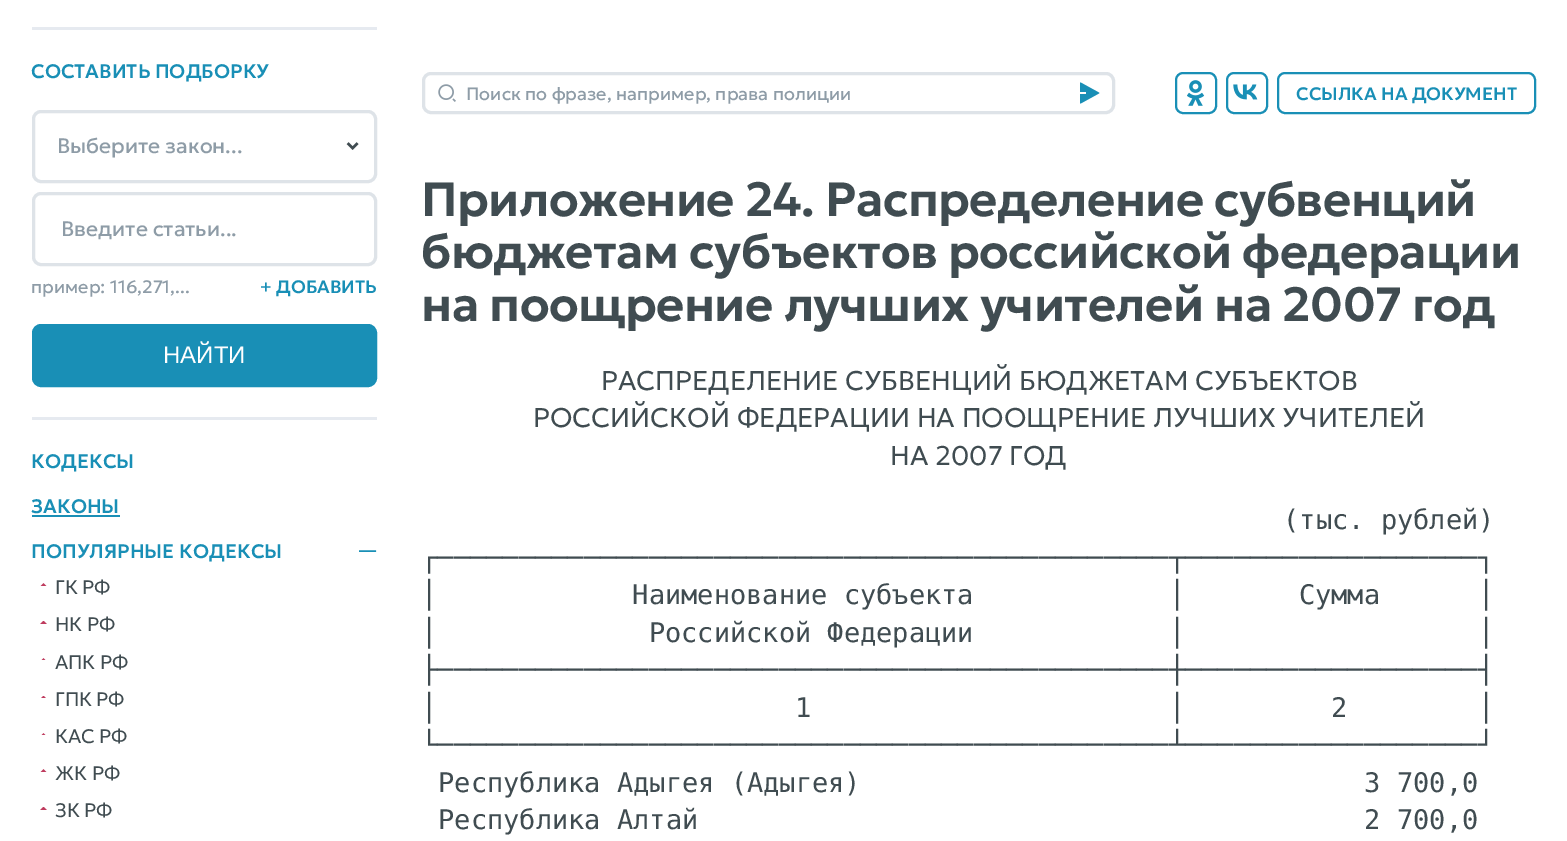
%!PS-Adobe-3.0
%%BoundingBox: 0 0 1567 841
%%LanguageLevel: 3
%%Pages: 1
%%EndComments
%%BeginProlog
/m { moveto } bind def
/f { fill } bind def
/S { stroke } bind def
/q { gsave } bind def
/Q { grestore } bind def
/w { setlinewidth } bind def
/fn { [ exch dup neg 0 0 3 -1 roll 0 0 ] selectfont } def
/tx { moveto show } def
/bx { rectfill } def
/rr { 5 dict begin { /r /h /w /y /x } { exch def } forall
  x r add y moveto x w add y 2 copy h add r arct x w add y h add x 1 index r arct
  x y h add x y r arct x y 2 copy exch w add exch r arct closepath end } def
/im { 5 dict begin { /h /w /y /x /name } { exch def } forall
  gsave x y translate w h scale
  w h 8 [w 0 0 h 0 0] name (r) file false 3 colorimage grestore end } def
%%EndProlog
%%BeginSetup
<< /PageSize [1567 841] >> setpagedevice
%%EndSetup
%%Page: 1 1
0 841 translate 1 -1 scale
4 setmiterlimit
1 setgray
0 0 1567 841 bx
0.902 0.918 0.941 setrgbcolor
32 27 345 3 bx
32 417 345 3 bx
/Geologica-Medium 19.5 fn
0.098 0.561 0.714 setrgbcolor
(СОСТАВИТЬ ПОДБОРКУ) 31 78 tx
(image0.raw) 346 142 13 8 im
0.871 0.89 0.91 setrgbcolor
3 w
33.5 111.5 342 70 7.5 rr S
/Geologica-Regular 21 fn
0.557 0.612 0.655 setrgbcolor
(Выберите закон...) 57 153 tx
0.871 0.89 0.91 setrgbcolor
33.5 193.5 342 71 7.5 rr S
0.557 0.612 0.655 setrgbcolor
(Введите статьи...) 61 236 tx
/Geologica-Regular 18 fn
(пример: 116,271,...) 31 293 tx
/Geologica-Medium 18 fn
0.098 0.561 0.714 setrgbcolor
(+ ДОБАВИТЬ) 260 293 tx
33 325 343 61 8 rr q f Q
2 w
S
/LiberationSans-Regular 24 fn
1 setgray
(НАЙТИ) 163 363 tx
/Geologica-Medium 19.5 fn
0.098 0.561 0.714 setrgbcolor
(КОДЕКСЫ) 31 468 tx
(ЗАКОНЫ) 31 513 tx
32 515 88 2 bx
(ПОПУЛЯРНЫЕ КОДЕКСЫ) 31 558 tx
(image1.raw) 359 550 18 2 im
(image2.raw) 40 583 7 3 im
/Geologica-Light 19.5 fn
0.251 0.298 0.318 setrgbcolor
55 594 m -0.25 0 (ГК РФ) ashow
(image3.raw) 40 621 7 3 im
55 631 m -0.25 0 (НК РФ) ashow
(image4.raw) 41 658 5 2 im
55 669 m -0.25 0 (АПК РФ) ashow
(image5.raw) 41 696 5 2 im
55 706 m -0.25 0 (ГПК РФ) ashow
(image4.raw) 41 733 5 2 im
55 743 m -0.25 0 (КАС РФ) ashow
(image2.raw) 40 769 7 3 im
55 780 m -0.25 0 (ЖК РФ) ashow
(image3.raw) 40 807 7 3 im
55 817 m -0.25 0 (ЗК РФ) ashow
(image6.raw) 438 84 18 18 im
0.871 0.89 0.91 setrgbcolor
3 w
423.5 73.5 690 39 7.5 rr S
/Geologica-Regular 18 fn
0.557 0.612 0.655 setrgbcolor
(Поиск по фразе, например, права полиции) 466 100 tx
(image7.raw) 1080 82 20 22 im
(image8.raw) 1187 80 18 26 im
0.098 0.561 0.714 setrgbcolor
2 w
1176 73 40 40 7 rr S
(image9.raw) 1233 84 25 16 im
1227 73 40 40 7 rr S
1278 73 257 40 7 rr S
/Geologica-Medium 18 fn
(ССЫЛКА НА ДОКУМЕНТ) 1296 100 tx
/Geologica-SemiBold 48 fn
0.251 0.298 0.318 setrgbcolor
421 216 m -0.5 0 (Приложение 24. Распределение субвенций) ashow
421 268 m -0.5 0 (бюджетам субъектов российской федерации) ashow
421 321 m -0.5 0 (на поощрение лучших учителей на 2007 год) ashow
/Geologica-Light 27 fn
(РАСПРЕДЕЛЕНИЕ СУБВЕНЦИЙ БЮДЖЕТАМ СУБЪЕКТОВ) 601 390 tx
(РОССИЙСКОЙ ФЕДЕРАЦИИ НА ПООЩРЕНИЕ ЛУЧШИХ УЧИТЕЛЕЙ) 533 427 tx
(НА 2007 ГОД) 890 465 tx
/DejaVuSansMono-Regular 27 fn
(\(тыс. рублей\)) 1283 529 tx
(┌─────────────────────────────────────────────┬──────────────────┐) 421 567 tx
(│            Наименование субъекта            │       Сумма      │) 421 604 tx
(│             Российской Федерации            │                  │) 421 642 tx
(├─────────────────────────────────────────────┼──────────────────┤) 421 679 tx
(│                      1                      │         2        │) 421 717 tx
(└─────────────────────────────────────────────┴──────────────────┘) 421 754 tx
(Республика Адыгея \(Адыгея\)                               3 700,0) 438 792 tx
(Республика Алтай                                         2 700,0) 438 829 tx
showpage
%%EOF
